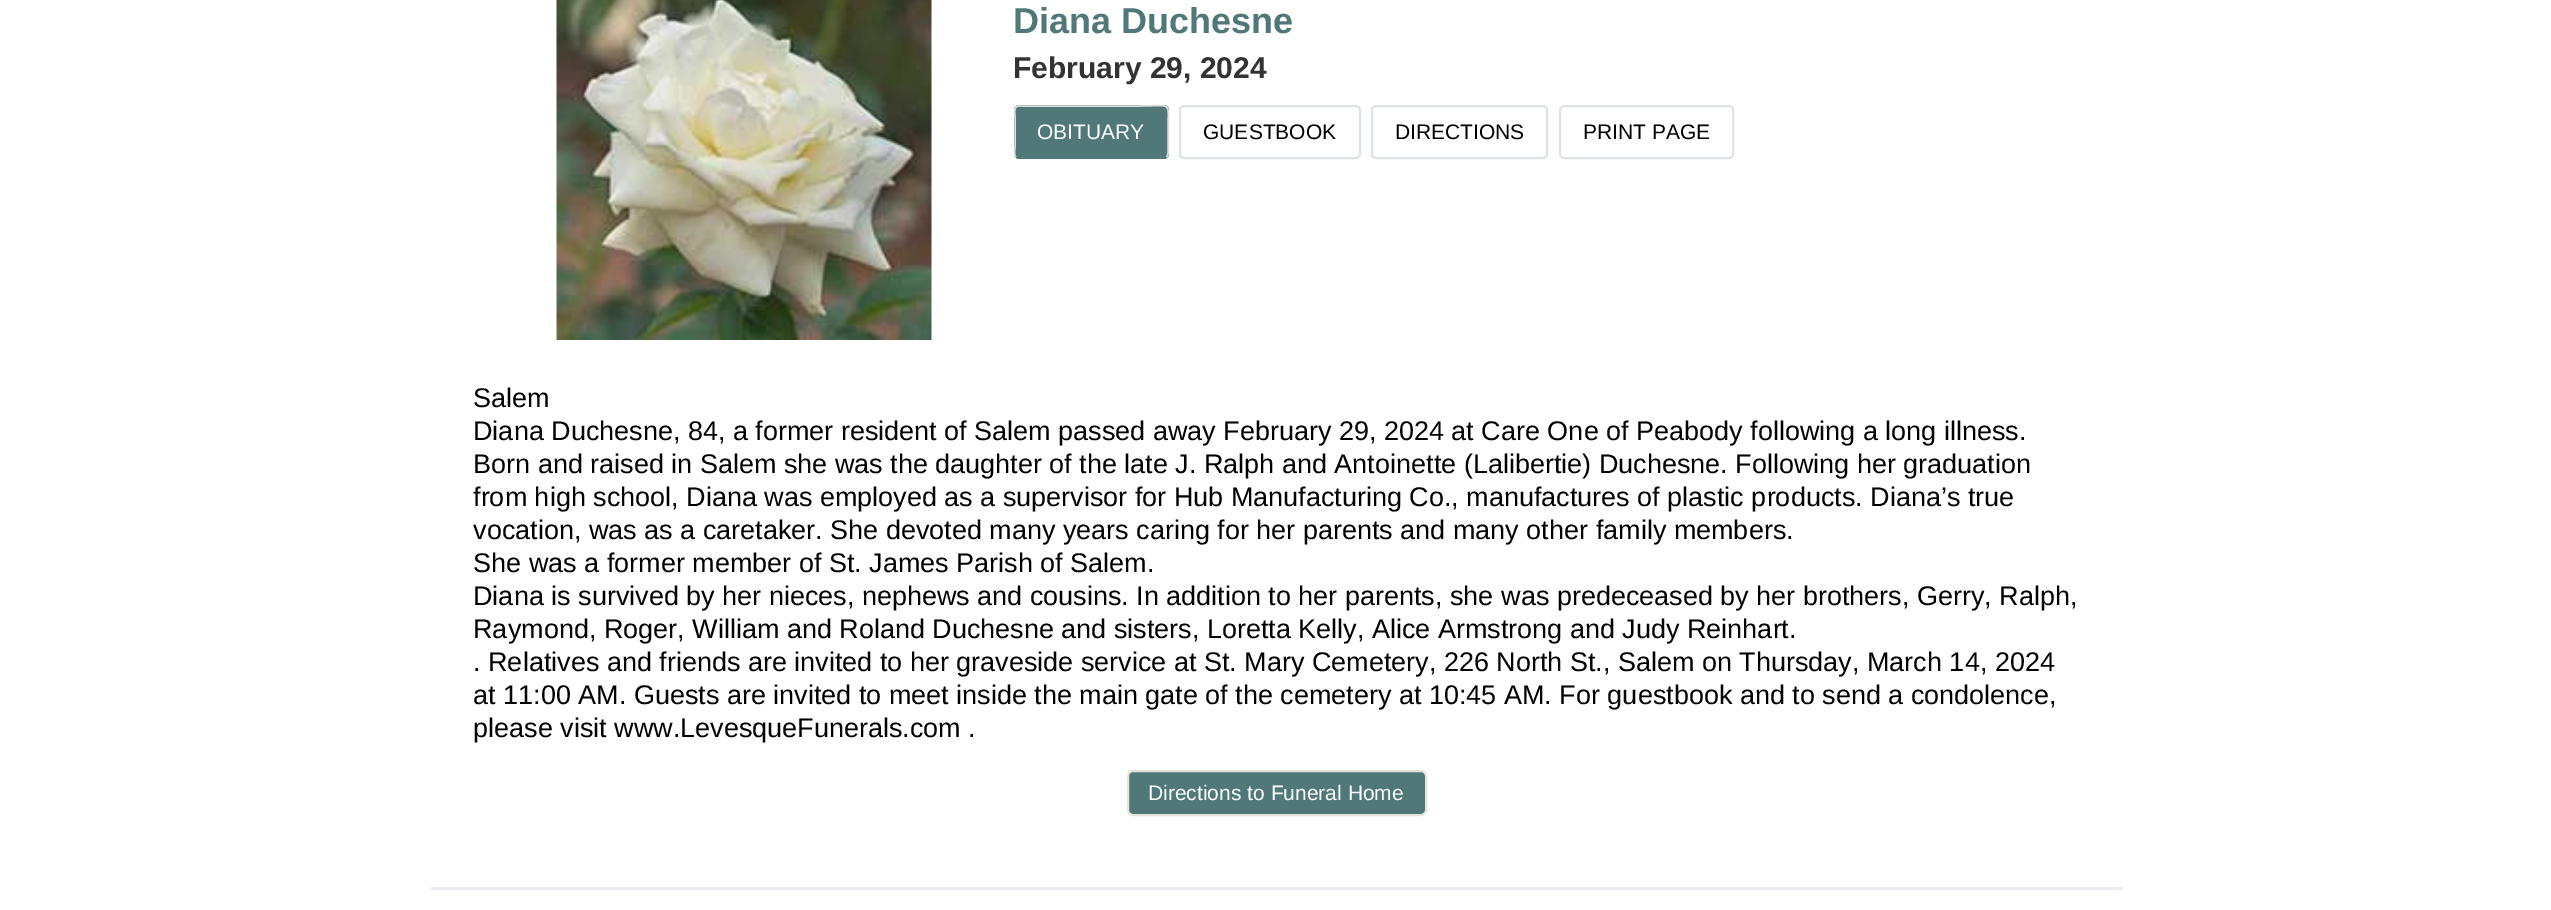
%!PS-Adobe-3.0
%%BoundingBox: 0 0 2551 910
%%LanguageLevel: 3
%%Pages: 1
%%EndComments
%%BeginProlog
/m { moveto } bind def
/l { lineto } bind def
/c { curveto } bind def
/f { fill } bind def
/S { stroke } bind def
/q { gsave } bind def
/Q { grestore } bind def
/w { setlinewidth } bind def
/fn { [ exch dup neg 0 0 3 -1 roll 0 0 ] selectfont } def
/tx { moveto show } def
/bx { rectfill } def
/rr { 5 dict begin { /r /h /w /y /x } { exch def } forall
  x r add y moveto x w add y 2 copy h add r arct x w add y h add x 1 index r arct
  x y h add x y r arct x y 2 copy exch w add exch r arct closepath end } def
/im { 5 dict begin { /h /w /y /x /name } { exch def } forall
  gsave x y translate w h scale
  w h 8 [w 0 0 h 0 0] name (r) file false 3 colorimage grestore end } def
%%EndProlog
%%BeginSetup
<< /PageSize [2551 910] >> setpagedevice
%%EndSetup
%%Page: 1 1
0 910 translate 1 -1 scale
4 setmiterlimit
1 setgray
0 0 2551 910 bx
(image0.raw) 556 0 376 340 im
/LiberationSans-Bold 36 fn
0.314 0.471 0.471 setrgbcolor
(Diana Duchesne) 1013 33 tx
/LiberationSans-Bold 30 fn
0.2 setgray
(February 29, 2024) 1013 78 tx
0.314 0.471 0.471 setrgbcolor
1014 105 155 54 5 rr f
0.867 setgray
1.5 w
1016 157 m 1013.5 155 1015 148.5 1015 147 c 1015 117 l 1015 114.5 1013 106 1018.5 106 c 1140 106 l 1173.5 106 1168 99.5 1168 132 c 1168 147 l 1168 148.5 1169 155 1166.5 157 c S
/LiberationSans-Regular 21 fn
1 setgray
(OBITUARY) 1037 139 tx
0.871 0.886 0.898 setrgbcolor
2 w
1180 106 180 52 4 rr S
0 setgray
(GUESTBOOK) 1203 139 tx
0.871 0.886 0.898 setrgbcolor
1372 106 175 52 4 rr S
0 setgray
(DIRECTIONS) 1395 139 tx
0.871 0.886 0.898 setrgbcolor
1560 106 173 52 4 rr S
0 setgray
(PRINT PAGE) 1583 139 tx
0.922 0.933 0.941 setrgbcolor
431 887 1692 3 bx
/LiberationSans-Regular 27 fn
0 setgray
(Salem) 473 407 tx
(Diana Duchesne, 84, a former resident of Salem passed away February 29, 2024 at Care One of Peabody following a long illness.) 473 440 tx
(Born and raised in Salem she was the daughter of the late J. Ralph and Antoinette \(Lalibertie\) Duchesne. Following her graduation) 473 473 tx
(from high school, Diana was employed as a supervisor for Hub Manufacturing Co., manufactures of plastic products. Diana’s true) 473 506 tx
(vocation, was as a caretaker. She devoted many years caring for her parents and many other family members.) 473 539 tx
(She was a former member of St. James Parish of Salem.) 473 572 tx
(Diana is survived by her nieces, nephews and cousins. In addition to her parents, she was predeceased by her brothers, Gerry, Ralph,) 473 605 tx
(Raymond, Roger, William and Roland Duchesne and sisters, Loretta Kelly, Alice Armstrong and Judy Reinhart.) 473 638 tx
(. Relatives and friends are invited to her graveside service at St. Mary Cemetery, 226 North St., Salem on Thursday, March 14, 2024) 473 671 tx
(at 11:00 AM. Guests are invited to meet inside the main gate of the cemetery at 10:45 AM. For guestbook and to send a condolence,) 473 704 tx
(please visit www.LevesqueFunerals.com .) 473 737 tx
0.314 0.471 0.471 setrgbcolor
1128 771 298 44 5 rr q f Q
0.894 0.894 0.863 setrgbcolor
S
/LiberationSans-Regular 21 fn
1 setgray
(Directions to Funeral Home) 1148 800 tx
showpage
%%EOF
